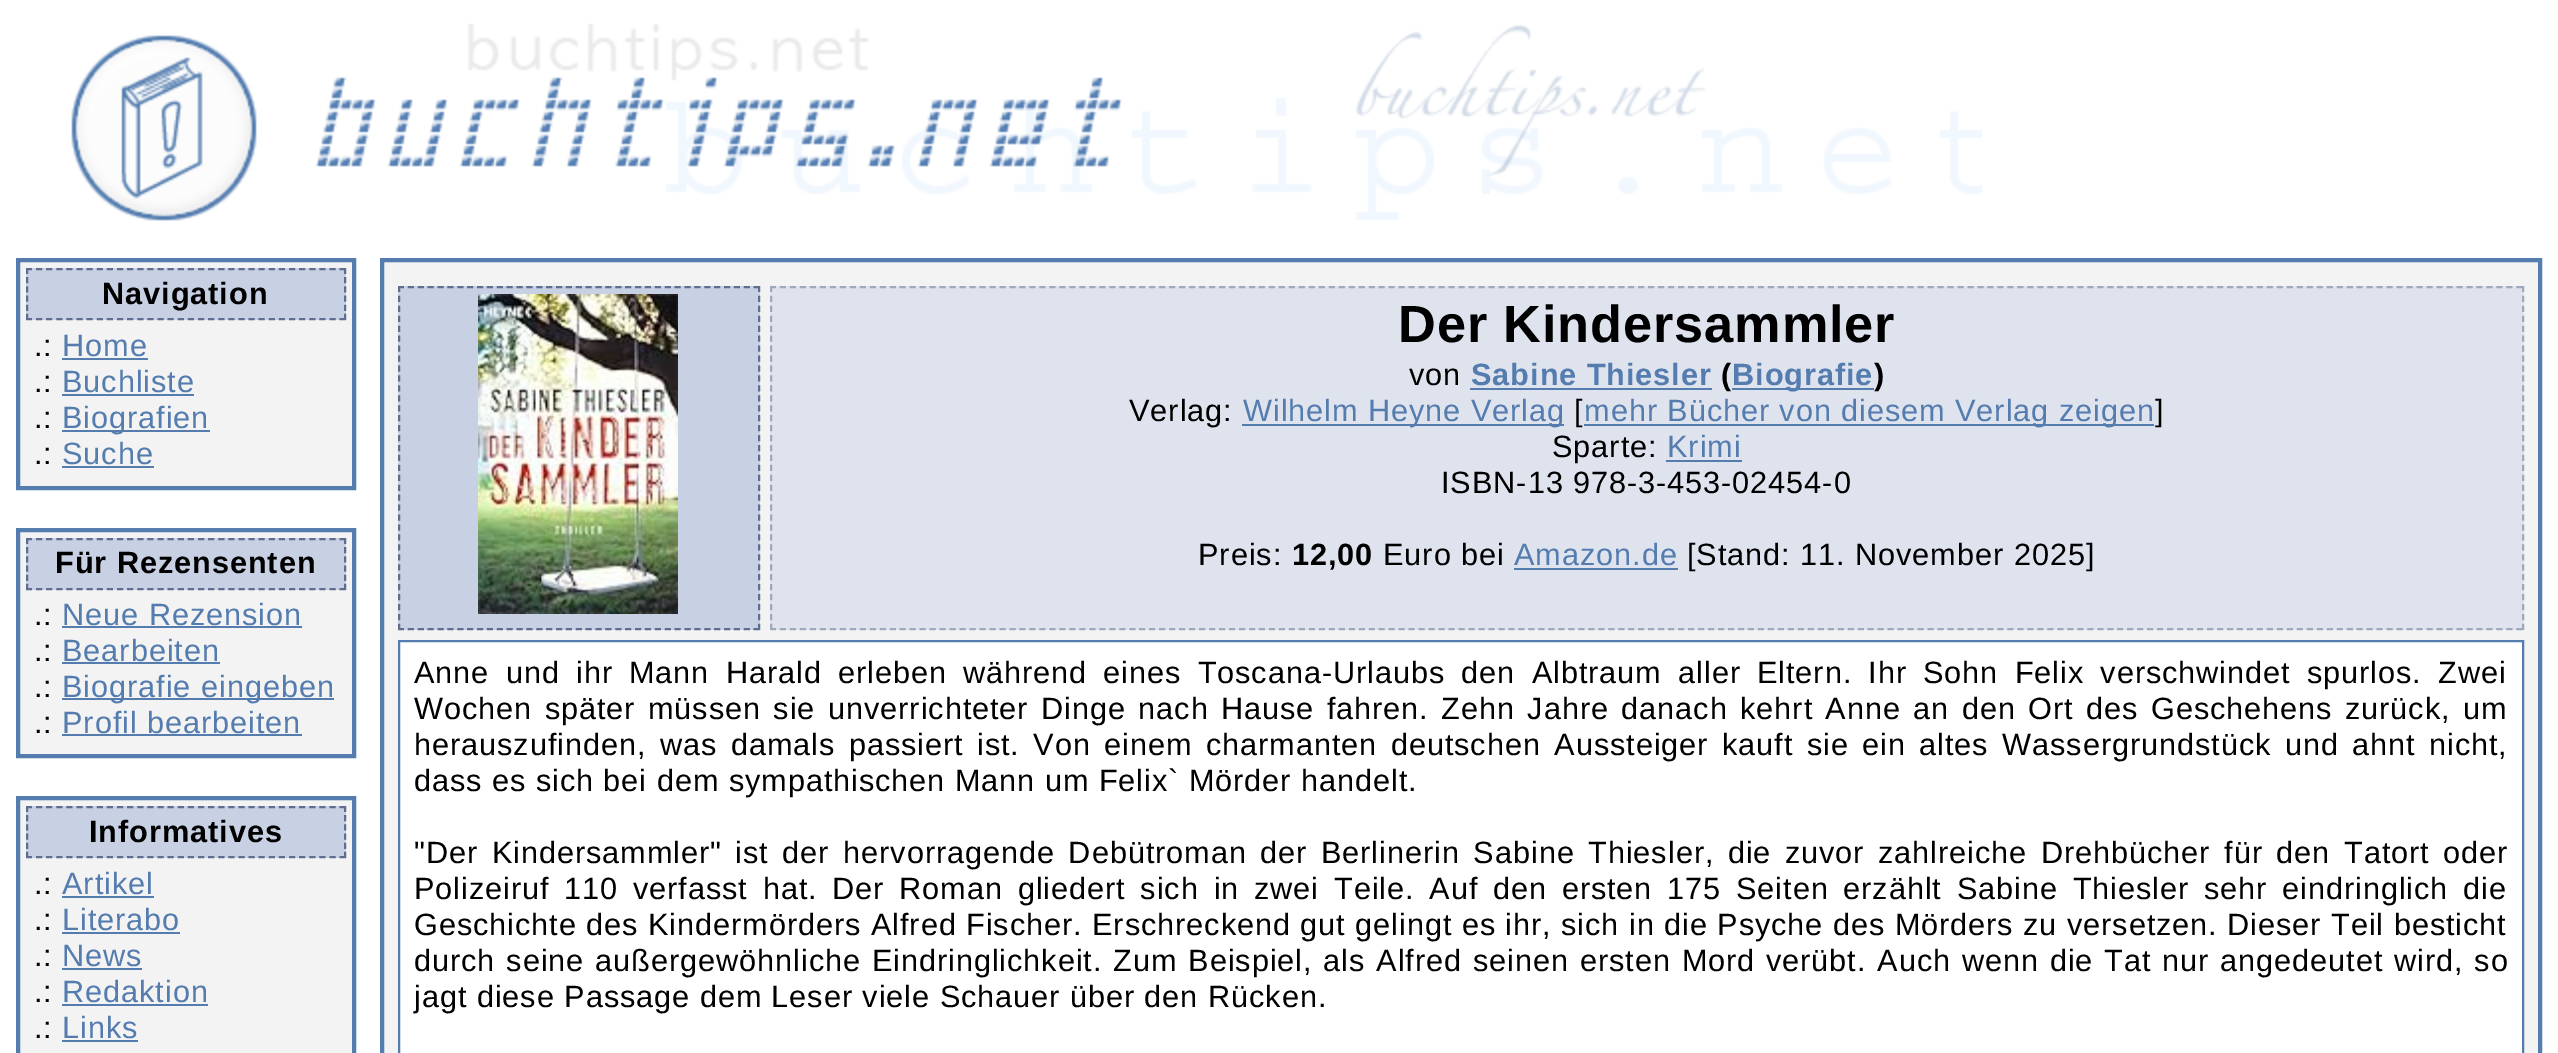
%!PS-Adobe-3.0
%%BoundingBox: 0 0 2558 1053
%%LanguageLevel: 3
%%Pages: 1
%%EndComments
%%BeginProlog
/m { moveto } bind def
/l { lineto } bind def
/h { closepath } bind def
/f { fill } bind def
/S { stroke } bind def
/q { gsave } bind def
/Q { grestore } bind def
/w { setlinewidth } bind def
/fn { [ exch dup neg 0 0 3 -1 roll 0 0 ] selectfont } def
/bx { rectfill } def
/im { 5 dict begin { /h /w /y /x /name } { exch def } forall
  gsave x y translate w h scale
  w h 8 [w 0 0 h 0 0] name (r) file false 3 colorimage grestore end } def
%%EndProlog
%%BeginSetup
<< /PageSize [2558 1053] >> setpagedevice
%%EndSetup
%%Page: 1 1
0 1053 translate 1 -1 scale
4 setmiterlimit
1 setgray
0 0 2558 1053 bx
(image0.raw) 71 23 1911 198 im
0.953 setgray
18 260 m 354 260 l 354 488 l 18 488 l h q f Q
0.329 0.486 0.686 setrgbcolor
4 w
S
0.784 0.816 0.89 setrgbcolor
26 268 320 52 bx
0.373 0.427 0.565 setrgbcolor
2 w
[6 4.12] 0 setdash
26 269 m 346 269 l S
[6 3.2] 0 setdash
345 268 m 345 320 l S
[6 4.12] 0 setdash
26 319 m 346 319 l S
[6 3.2] 0 setdash
27 268 m 27 320 l S
/LiberationSans-Bold 30.72 fn
0 setgray
102 304 m 0.92 0 (Navigation) ashow
/LiberationSans-Regular 30.72 fn
34 356 m 0.92 0 (.:) ashow
0.329 0.486 0.686 setrgbcolor
62 356 m 0.92 0 (Home) ashow
62 358 86 2 bx
0 setgray
34 392 m 0.92 0 (.:) ashow
0.329 0.486 0.686 setrgbcolor
62 392 m 0.92 0 (Buchliste) ashow
62 394 132 2 bx
0 setgray
34 428 m 0.92 0 (.:) ashow
0.329 0.486 0.686 setrgbcolor
62 430 148 2 bx
62 428 m 0.92 0 (Biografien) ashow
0 setgray
34 464 m 0.92 0 (.:) ashow
0.329 0.486 0.686 setrgbcolor
62 464 m 0.92 0 (Suche) ashow
62 466 92 2 bx
0.953 setgray
18 530 m 354 530 l 354 756 l 18 756 l h q f Q
0.329 0.486 0.686 setrgbcolor
4 w
[] 0 setdash
S
0.784 0.816 0.89 setrgbcolor
26 538 320 52 bx
0.373 0.427 0.565 setrgbcolor
2 w
[6 4.12] 0 setdash
26 539 m 346 539 l S
[6 3.2] 0 setdash
345 538 m 345 590 l S
[6 4.12] 0 setdash
26 589 m 346 589 l S
[6 3.2] 0 setdash
27 538 m 27 590 l S
/LiberationSans-Bold 30.72 fn
0 setgray
55 573 m 0.92 0 (Für Rezensenten) ashow
/LiberationSans-Regular 30.72 fn
34 625 m 0.92 0 (.:) ashow
0.329 0.486 0.686 setrgbcolor
62 625 m 0.92 0 (Neue Rezension) ashow
62 626 240 2 bx
0 setgray
34 661 m 0.92 0 (.:) ashow
0.329 0.486 0.686 setrgbcolor
62 661 m 0.92 0 (Bearbeiten) ashow
62 662 158 2 bx
0 setgray
34 697 m 0.92 0 (.:) ashow
0.329 0.486 0.686 setrgbcolor
62 698 272 2 bx
62 697 m 0.92 0 (Biografie eingeben) ashow
0 setgray
34 733 m 0.92 0 (.:) ashow
0.329 0.486 0.686 setrgbcolor
62 733 m 0.92 0 (Profil bearbeiten) ashow
62 734 240 2 bx
0.953 setgray
18 798 m 354 798 l 354 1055 l 18 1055 l h q f Q
0.329 0.486 0.686 setrgbcolor
4 w
[] 0 setdash
S
0.784 0.816 0.89 setrgbcolor
26 806 320 52 bx
0.373 0.427 0.565 setrgbcolor
2 w
[6 4.12] 0 setdash
26 807 m 346 807 l S
[6 3.2] 0 setdash
345 806 m 345 858 l S
[6 4.12] 0 setdash
26 857 m 346 857 l S
[6 3.2] 0 setdash
27 806 m 27 858 l S
/LiberationSans-Bold 30.72 fn
0 setgray
89 842 m 0.92 0 (Informatives) ashow
/LiberationSans-Regular 30.72 fn
34 894 m 0.92 0 (.:) ashow
0.329 0.486 0.686 setrgbcolor
62 894 m 0.92 0 (Artikel) ashow
62 896 92 2 bx
0 setgray
34 930 m 0.92 0 (.:) ashow
0.329 0.486 0.686 setrgbcolor
62 930 m 0.92 0 (Literabo) ashow
62 932 118 2 bx
0 setgray
34 966 m 0.92 0 (.:) ashow
0.329 0.486 0.686 setrgbcolor
62 966 m 0.92 0 (News) ashow
62 968 80 2 bx
0 setgray
34 1002 m 0.92 0 (.:) ashow
0.329 0.486 0.686 setrgbcolor
62 1002 m 0.92 0 (Redaktion) ashow
62 1004 146 2 bx
0 setgray
34 1038 m 0.92 0 (.:) ashow
0.329 0.486 0.686 setrgbcolor
62 1038 m 0.92 0 (Links) ashow
62 1040 76 2 bx
0.953 setgray
382 260 m 2540 260 l 2540 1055 l 382 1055 l h q f Q
0.329 0.486 0.686 setrgbcolor
4 w
[] 0 setdash
S
0.784 0.816 0.89 setrgbcolor
398 286 362 344 bx
0.373 0.427 0.565 setrgbcolor
2 w
[6 3.88] 0 setdash
398 287 m 760 287 l S
[6 3.94] 0 setdash
759 286 m 759 630 l S
[6 3.88] 0 setdash
398 629 m 760 629 l S
[6 3.94] 0 setdash
399 286 m 399 630 l S
(image1.raw) 478 294 200 320 im
0.875 0.89 0.933 setrgbcolor
770 286 1754 344 bx
0.627 0.659 0.741 setrgbcolor
[6 3.98] 0 setdash
770 287 m 2524 287 l S
[6 3.94] 0 setdash
2523 286 m 2523 630 l S
[6 3.98] 0 setdash
770 629 m 2524 629 l S
[6 3.94] 0 setdash
771 286 m 771 630 l S
/LiberationSans-Bold 52.25 fn
0 setgray
1398 342 m 0.92 0 (Der Kindersammler) ashow
/LiberationSans-Regular 30.72 fn
1409 385 m 0.92 0 (von) ashow
/LiberationSans-Bold 30.72 fn
0.329 0.486 0.686 setrgbcolor
1471 385 m 0.92 0 (Sabine Thiesler) ashow
1470 388 242 2 bx
0 setgray
1721 385 m 0.92 0 (\() ashow
0.329 0.486 0.686 setrgbcolor
1732 388 142 2 bx
1732 385 m 0.92 0 (Biografie) ashow
0 setgray
1874 385 m 0.92 0 (\)) ashow
/LiberationSans-Regular 30.72 fn
1129 421 m 0.92 0 (Verlag:) ashow
0.329 0.486 0.686 setrgbcolor
1242 424 322 2 bx
1243 421 m 0.92 0 (Wilhelm Heyne Verlag) ashow
0 setgray
1574 421 m 0.92 0 ([) ashow
0.329 0.486 0.686 setrgbcolor
1584 424 570 2 bx
1584 421 m 0.92 0 (mehr Bücher von diesem Verlag zeigen) ashow
0 setgray
2155 421 m 0.92 0 (]) ashow
1552 457 m 0.92 0 (Sparte:) ashow
0.329 0.486 0.686 setrgbcolor
1667 457 m 0.92 0 (Krimi) ashow
1666 460 76 2 bx
0 setgray
1441 493 m 0.92 0 (ISBN-13 978-3-453-02454-0) ashow
1198 565 m 0.92 0 (Preis:) ashow
/LiberationSans-Bold 30.72 fn
1292 565 m 0.92 0 (12,00) ashow
/LiberationSans-Regular 30.72 fn
1383 565 m 0.92 0 (Euro bei) ashow
0.329 0.486 0.686 setrgbcolor
1514 565 m 0.92 0 (Amazon.de) ashow
1514 568 164 2 bx
0 setgray
1687 565 m 0.92 0 ([Stand: 11. November 2025]) ashow
1 setgray
399 641 m 2523 641 l 2523 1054 l 399 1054 l h q f Q
0.329 0.486 0.686 setrgbcolor
[] 0 setdash
S
0 setgray
414 683 m 6.75 0 32 0.92 0 (Anne und ihr Mann Harald erleben während eines Toscana-Urlaubs den Albtraum aller Eltern. Ihr Sohn Felix verschwindet spurlos. Zwei) awidthshow
414 719 m 3 0 32 0.92 0 (Wochen später müssen sie unverrichteter Dinge nach Hause fahren. Zehn Jahre danach kehrt Anne an den Ort des Geschehens zurück, um) awidthshow
414 755 m 4 0 32 0.92 0 (herauszufinden, was damals passiert ist. Von einem charmanten deutschen Aussteiger kauft sie ein altes Wassergrundstück und ahnt nicht,) awidthshow
414 791 m 0.92 0 (dass es sich bei dem sympathischen Mann um Felix` Mörder handelt.) ashow
414 863 m 4.1 0 32 0.92 0 ("Der Kindersammler" ist der hervorragende Debütroman der Berlinerin Sabine Thiesler, die zuvor zahlreiche Drehbücher für den Tatort oder) awidthshow
414 899 m 5.3 0 32 0.92 0 (Polizeiruf 110 verfasst hat. Der Roman gliedert sich in zwei Teile. Auf den ersten 175 Seiten erzählt Sabine Thiesler sehr eindringlich die) awidthshow
414 935 m 0.92 0 (Geschichte des Kindermörders Alfred Fischer. Erschreckend gut gelingt es ihr, sich in die Psyche des Mörders zu versetzen. Dieser Teil besticht) ashow
414 971 m 1.4 0 32 0.92 0 (durch seine außergewöhnliche Eindringlichkeit. Zum Beispiel, als Alfred seinen ersten Mord verübt. Auch wenn die Tat nur angedeutet wird, so) awidthshow
414 1007 m 0.92 0 (jagt diese Passage dem Leser viele Schauer über den Rücken.) ashow
showpage
%%EOF
